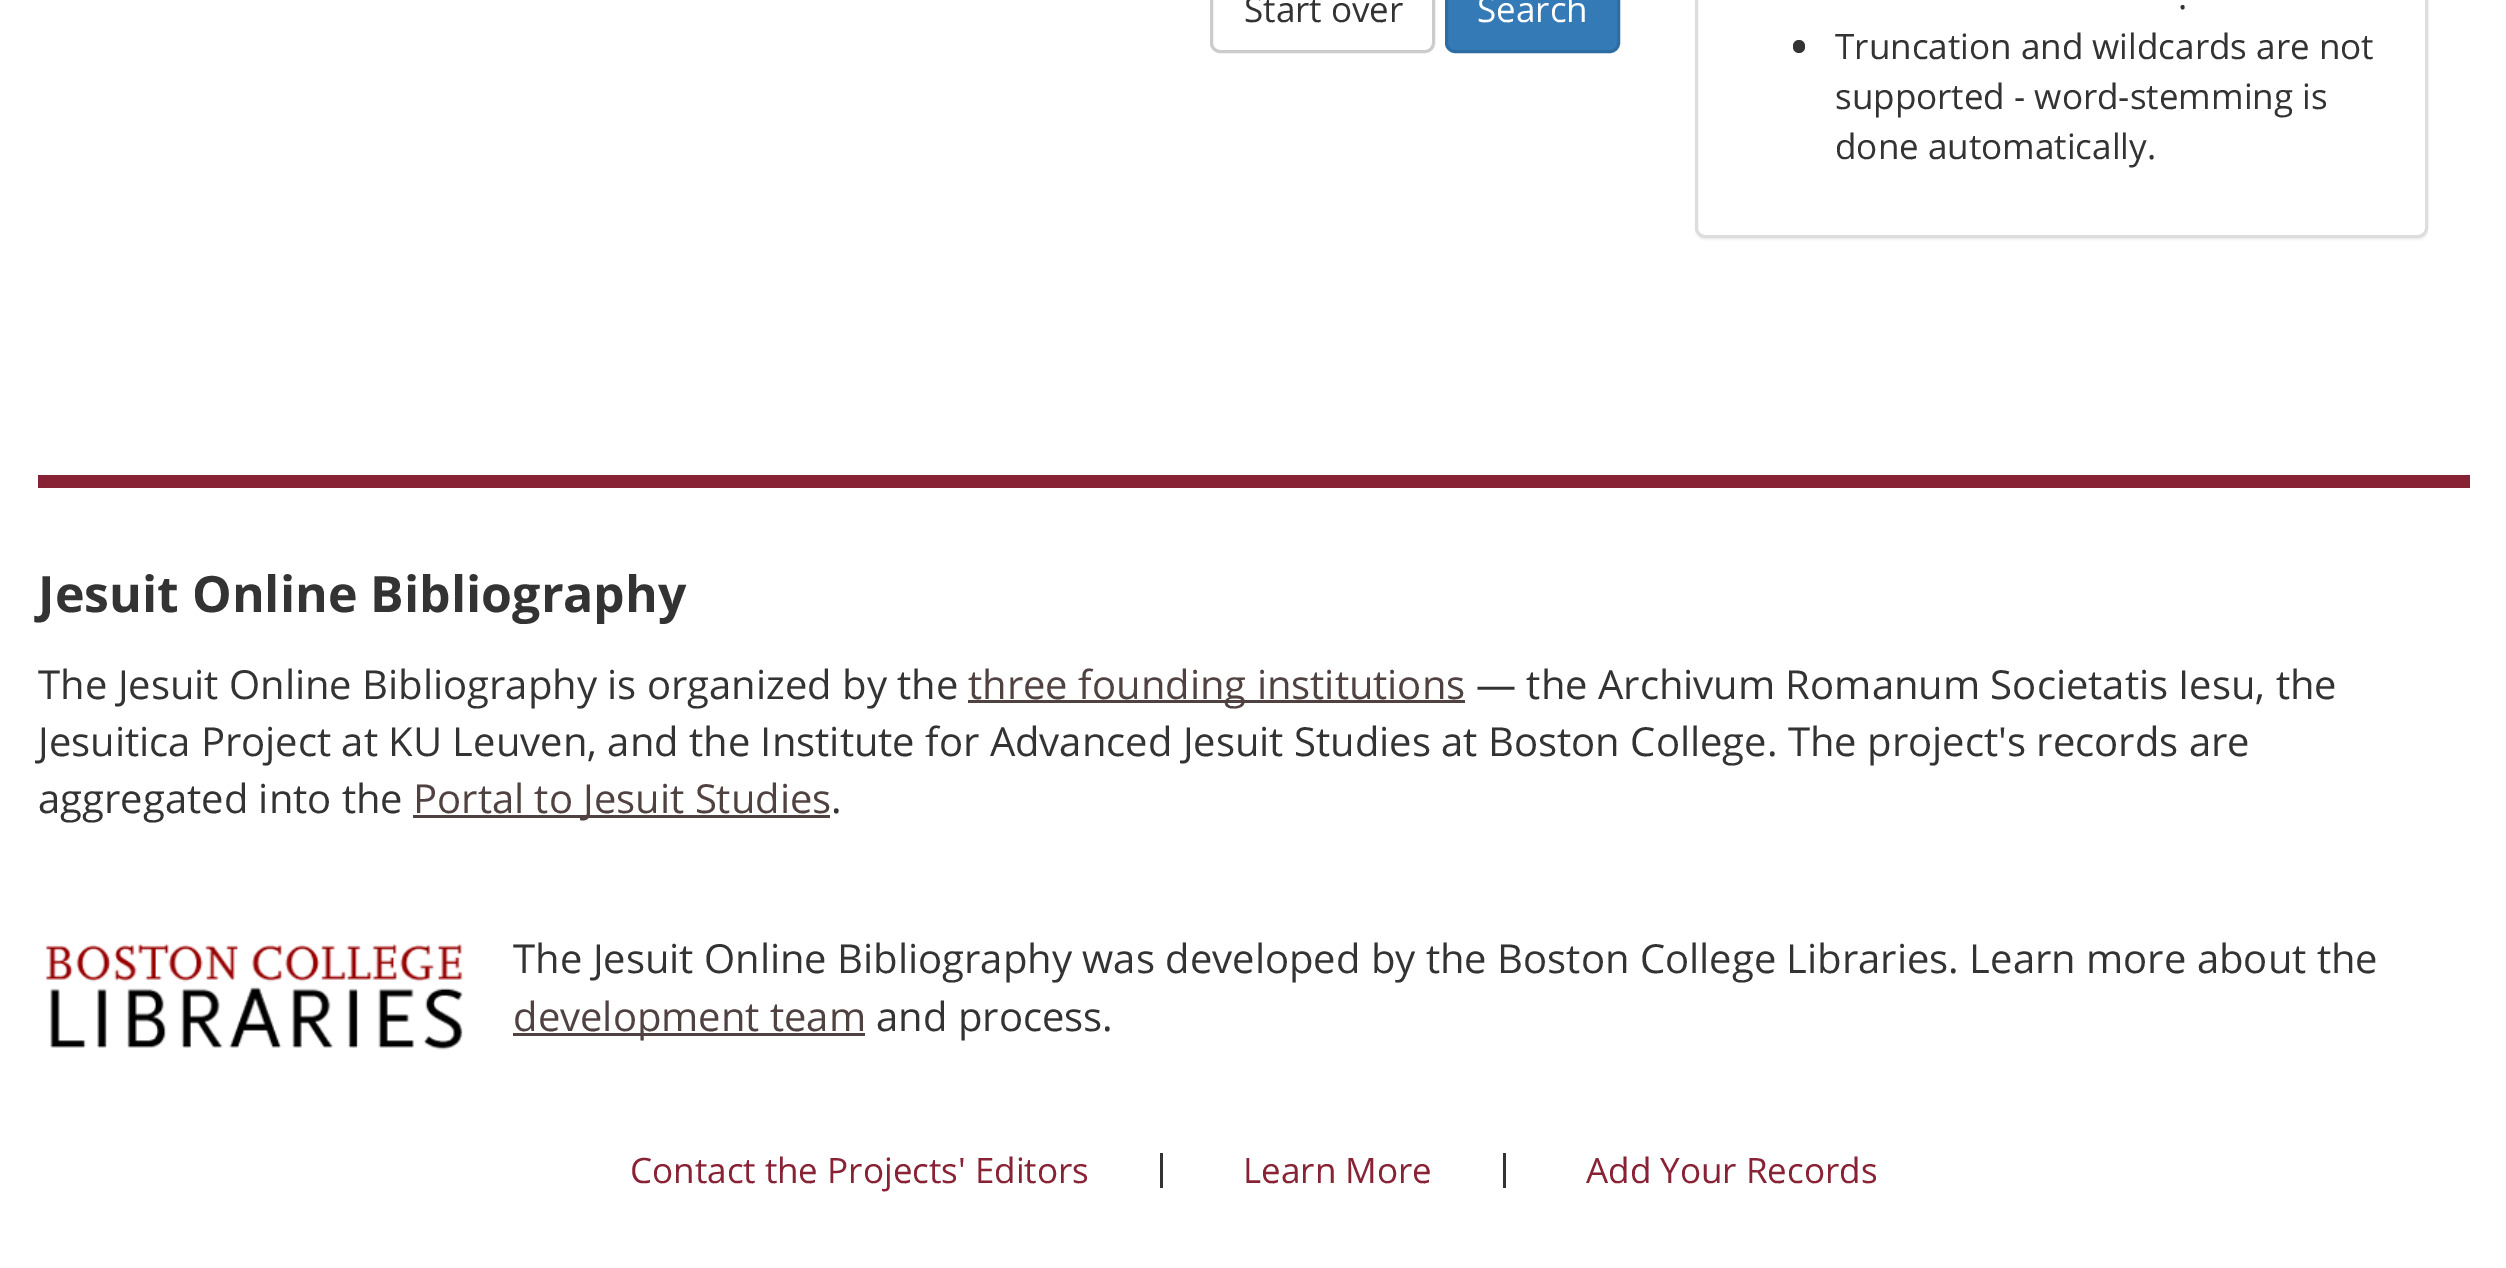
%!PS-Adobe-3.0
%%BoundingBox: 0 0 2506 1268
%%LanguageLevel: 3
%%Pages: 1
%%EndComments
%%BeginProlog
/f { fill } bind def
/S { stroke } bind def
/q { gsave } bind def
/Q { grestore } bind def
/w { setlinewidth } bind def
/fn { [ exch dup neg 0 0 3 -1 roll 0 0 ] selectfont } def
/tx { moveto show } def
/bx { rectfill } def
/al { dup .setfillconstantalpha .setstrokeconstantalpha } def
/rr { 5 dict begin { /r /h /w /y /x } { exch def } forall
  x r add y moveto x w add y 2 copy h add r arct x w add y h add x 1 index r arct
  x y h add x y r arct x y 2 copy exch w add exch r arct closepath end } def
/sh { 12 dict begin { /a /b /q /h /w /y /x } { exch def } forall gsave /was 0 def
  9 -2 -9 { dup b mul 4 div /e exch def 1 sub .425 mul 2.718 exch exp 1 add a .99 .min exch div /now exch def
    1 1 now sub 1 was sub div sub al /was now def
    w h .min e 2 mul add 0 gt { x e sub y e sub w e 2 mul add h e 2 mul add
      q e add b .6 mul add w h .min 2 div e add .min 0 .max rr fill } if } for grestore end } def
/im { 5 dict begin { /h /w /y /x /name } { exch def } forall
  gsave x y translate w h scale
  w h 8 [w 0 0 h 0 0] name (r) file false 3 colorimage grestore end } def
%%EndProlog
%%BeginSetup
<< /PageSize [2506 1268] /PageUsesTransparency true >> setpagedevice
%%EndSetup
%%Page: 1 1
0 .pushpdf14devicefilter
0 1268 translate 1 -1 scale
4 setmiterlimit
1 setgray
0 0 2506 1268 bx
0.8 setgray
3 w
1211.5 -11.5 222 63 8.5 rr S
/OpenSans-Regular 35 fn
0.2 setgray
(Start over) 1244 22 tx
0.2 0.478 0.718 setrgbcolor
1446.5 -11.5 172 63 8.5 rr q f Q
0.18 0.427 0.643 setrgbcolor
S
1 setgray
(Search) 1477 22 tx
0 setgray
1695 -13 733 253 10 1 0.05 sh
1 setgray
1696.5 -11.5 730 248 8.5 rr q f Q
0.867 setgray
S
0.2 setgray
(.) 2178 9 tx
1793 40 12 13 6 rr f
(Truncation and wildcards are not) 1835 59 tx
(supported - word-stemming is) 1835 109 tx
(done automatically.) 1835 159 tx
0.529 0.137 0.204 setrgbcolor
38 475 2432 13 bx
/OpenSans-Bold 50 fn
0.2 setgray
(Jesuit Online Bibliography) 38 612 tx
/OpenSans-Regular 40 fn
(The Jesuit Online Bibliography is organized by the) 38 699 tx
0.318 0.259 0.259 setrgbcolor
968 700 497 3 bx
(three founding institutions) 968 699 tx
0.2 setgray
(— the Archivum Romanum Societatis Iesu, the) 1476 699 tx
(Jesuitica Project at KU Leuven, and the Institute for Advanced Jesuit Studies at Boston College. The project's records are) 38 756 tx
(aggregated into the) 38 813 tx
0.318 0.259 0.259 setrgbcolor
413 815 417 3 bx
(Portal to Jesuit Studies) 413 813 tx
0.2 setgray
(.) 831 813 tx
(image0.raw) 46 943 417 107 im
(The Jesuit Online Bibliography was developed by the Boston College Libraries. Learn more about the) 513 973 tx
0.318 0.259 0.259 setrgbcolor
513 1033 352 3 bx
(development team) 513 1031 tx
0.2 setgray
(and process.) 876 1031 tx
1160 1153 3 35 bx
/OpenSans-Regular 35 fn
0.529 0.137 0.204 setrgbcolor
(Contact the Projects' Editors) 630 1183 tx
0.2 setgray
1503 1153 3 35 bx
0.529 0.137 0.204 setrgbcolor
(Learn More) 1243 1183 tx
(Add Your Records) 1586 1183 tx
.poppdf14devicefilter showpage
%%EOF
